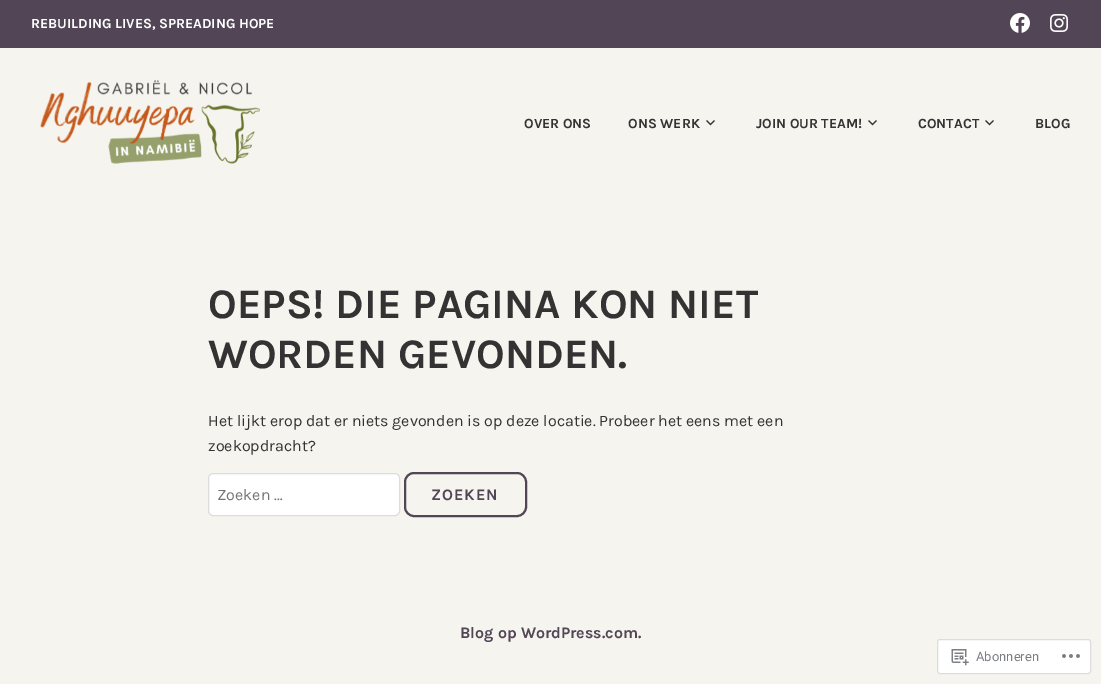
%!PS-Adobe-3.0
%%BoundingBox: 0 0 1101 684
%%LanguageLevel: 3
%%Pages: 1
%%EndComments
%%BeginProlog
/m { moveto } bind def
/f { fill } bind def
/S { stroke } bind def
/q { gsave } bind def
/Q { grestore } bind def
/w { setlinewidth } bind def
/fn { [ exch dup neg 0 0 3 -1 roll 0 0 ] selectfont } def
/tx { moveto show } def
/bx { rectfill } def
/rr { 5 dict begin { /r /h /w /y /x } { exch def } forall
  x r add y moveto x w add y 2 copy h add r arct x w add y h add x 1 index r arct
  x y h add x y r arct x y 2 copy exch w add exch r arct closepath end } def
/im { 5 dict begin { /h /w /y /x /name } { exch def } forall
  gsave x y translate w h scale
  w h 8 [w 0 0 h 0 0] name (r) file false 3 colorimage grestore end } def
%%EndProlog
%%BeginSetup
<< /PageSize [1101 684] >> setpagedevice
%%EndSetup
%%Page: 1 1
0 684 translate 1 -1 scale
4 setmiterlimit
0.965 0.957 0.933 setrgbcolor
0 0 1101 684 bx
0.322 0.275 0.337 setrgbcolor
0 0 1101 48 bx
/Karla-Bold 14 fn
1 setgray
(REBUILDING LIVES, SPREADING HOPE) 31 28 tx
(image0.raw) 1010 13 20 20 im
(image1.raw) 1050 14 18 18 im
(image2.raw) 40 80 220 84 im
0.2 setgray
(OVER ONS) 524 128 tx
(ONS WERK) 628 128 tx
(image3.raw) 706 120 9 6 im
(JOIN OUR TEAM!) 756 128 tx
(image3.raw) 868 120 9 6 im
(CONTACT) 918 128 tx
(image3.raw) 985 120 9 6 im
(BLOG) 1035 128 tx
/Karla-Bold 42 fn
(OEPS! DIE PAGINA KON NIET) 208 318 tx
(WORDEN GEVONDEN.) 208 368 tx
/Karla-Regular 16 fn
(Het lijkt erop dat er niets gevonden is op deze locatie. Probeer het eens met een) 208 426 tx
(zoekopdracht?) 208 451 tx
1 setgray
208.5 473.5 191 42 4.5 rr q f Q
0.867 setgray
S
0.459 setgray
(Zoeken …) 217 500 tx
0.322 0.275 0.337 setrgbcolor
2 w
405 473 121 43 9 rr S
/Karla-Bold 16 fn
431 500 m 1 0 (ZOEKEN) ashow
(Blog op WordPress.com.) 460 638 tx
1 setgray
937.5 639.5 153 34 2.5 rr q f Q
0.867 0.863 0.871 setrgbcolor
1 w
S
(image4.raw) 951 649 18 17 im
/Roboto-Regular 13 fn
0.482 0.494 0.518 setrgbcolor
(Abonneren) 976 661 tx
(image5.raw) 1062 654 18 4 im
showpage
%%EOF
